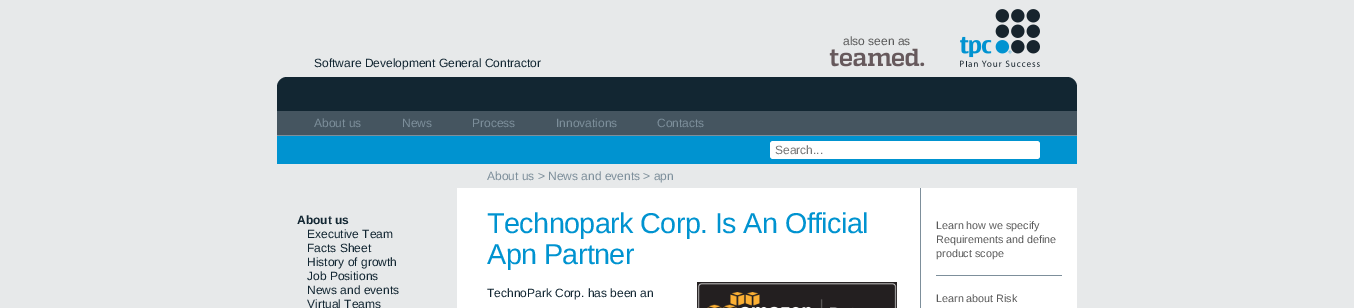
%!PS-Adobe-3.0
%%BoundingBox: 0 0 1354 308
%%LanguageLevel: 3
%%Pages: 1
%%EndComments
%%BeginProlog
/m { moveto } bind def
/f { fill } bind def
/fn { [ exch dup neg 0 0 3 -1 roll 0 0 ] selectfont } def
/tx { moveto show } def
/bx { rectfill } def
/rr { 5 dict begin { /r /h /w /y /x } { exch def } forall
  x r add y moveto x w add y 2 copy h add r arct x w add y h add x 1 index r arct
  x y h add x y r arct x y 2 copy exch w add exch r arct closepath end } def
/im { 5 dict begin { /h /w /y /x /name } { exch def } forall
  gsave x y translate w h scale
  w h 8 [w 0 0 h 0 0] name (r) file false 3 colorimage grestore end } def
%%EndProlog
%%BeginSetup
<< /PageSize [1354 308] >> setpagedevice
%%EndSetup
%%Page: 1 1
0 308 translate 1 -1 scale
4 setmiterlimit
0.906 0.914 0.918 setrgbcolor
0 0 1354 308 bx
/LiberationSans-Regular 12 fn
0.353 setgray
(also seen as) 843 45 tx
(image0.raw) 829 48 96 19 im
(image1.raw) 960 9 80 58 im
0.071 0.149 0.196 setrgbcolor
(Software Development General Contractor) 314 67 tx
277 77 800 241 10 rr f
0.271 0.333 0.376 setrgbcolor
277 111 800 24 bx
0.49 0.561 0.608 setrgbcolor
277 135 800 1 bx
(About us) 314 127 tx
(News) 402 127 tx
(Process) 472 127 tx
(Innovations) 556 127 tx
(Contacts) 657 127 tx
0.906 0.914 0.918 setrgbcolor
277 164 800 24 bx
0 0.576 0.816 setrgbcolor
277 136 800 28 bx
1 setgray
770 141 270 18 3 rr f
0.459 setgray
(Search...) 775 154 tx
0.49 0.561 0.608 setrgbcolor
(About us > News and events > apn) 487 180 tx
1 setgray
457 188 620 120 bx
0.906 0.914 0.918 setrgbcolor
267 178 190 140 10 rr f
/LiberationSans-Bold 12 fn
0.071 0.149 0.196 setrgbcolor
(About us) 297 224 tx
/LiberationSans-Regular 12 fn
(Executive Team) 307 238 tx
(Facts Sheet) 307 252 tx
(History of growth) 307 266 tx
(Job Positions) 307 280 tx
(News and events) 307 294 tx
(Virtual Teams) 307 308 tx
/LiberationSans-Regular 28.75 fn
0 0.576 0.816 setrgbcolor
487 233 m -0.6 0 (Technopark Corp. Is An Official) ashow
487 264 m -0.6 0 (Apn Partner) ashow
/LiberationSans-Regular 12 fn
0.071 0.149 0.196 setrgbcolor
(TechnoPark Corp. has been an) 487 297 tx
(image2.raw) 697 282 200 26 im
0.49 0.561 0.608 setrgbcolor
920 188 1 120 bx
/LiberationSans-Regular 10.75 fn
0.353 setgray
(Learn how we specify) 936 229 tx
(Requirements and define) 936 243 tx
(product scope) 936 257 tx
0.49 0.561 0.608 setrgbcolor
936 275 126 1 bx
0.353 setgray
(Learn about Risk) 936 302 tx
showpage
%%EOF
